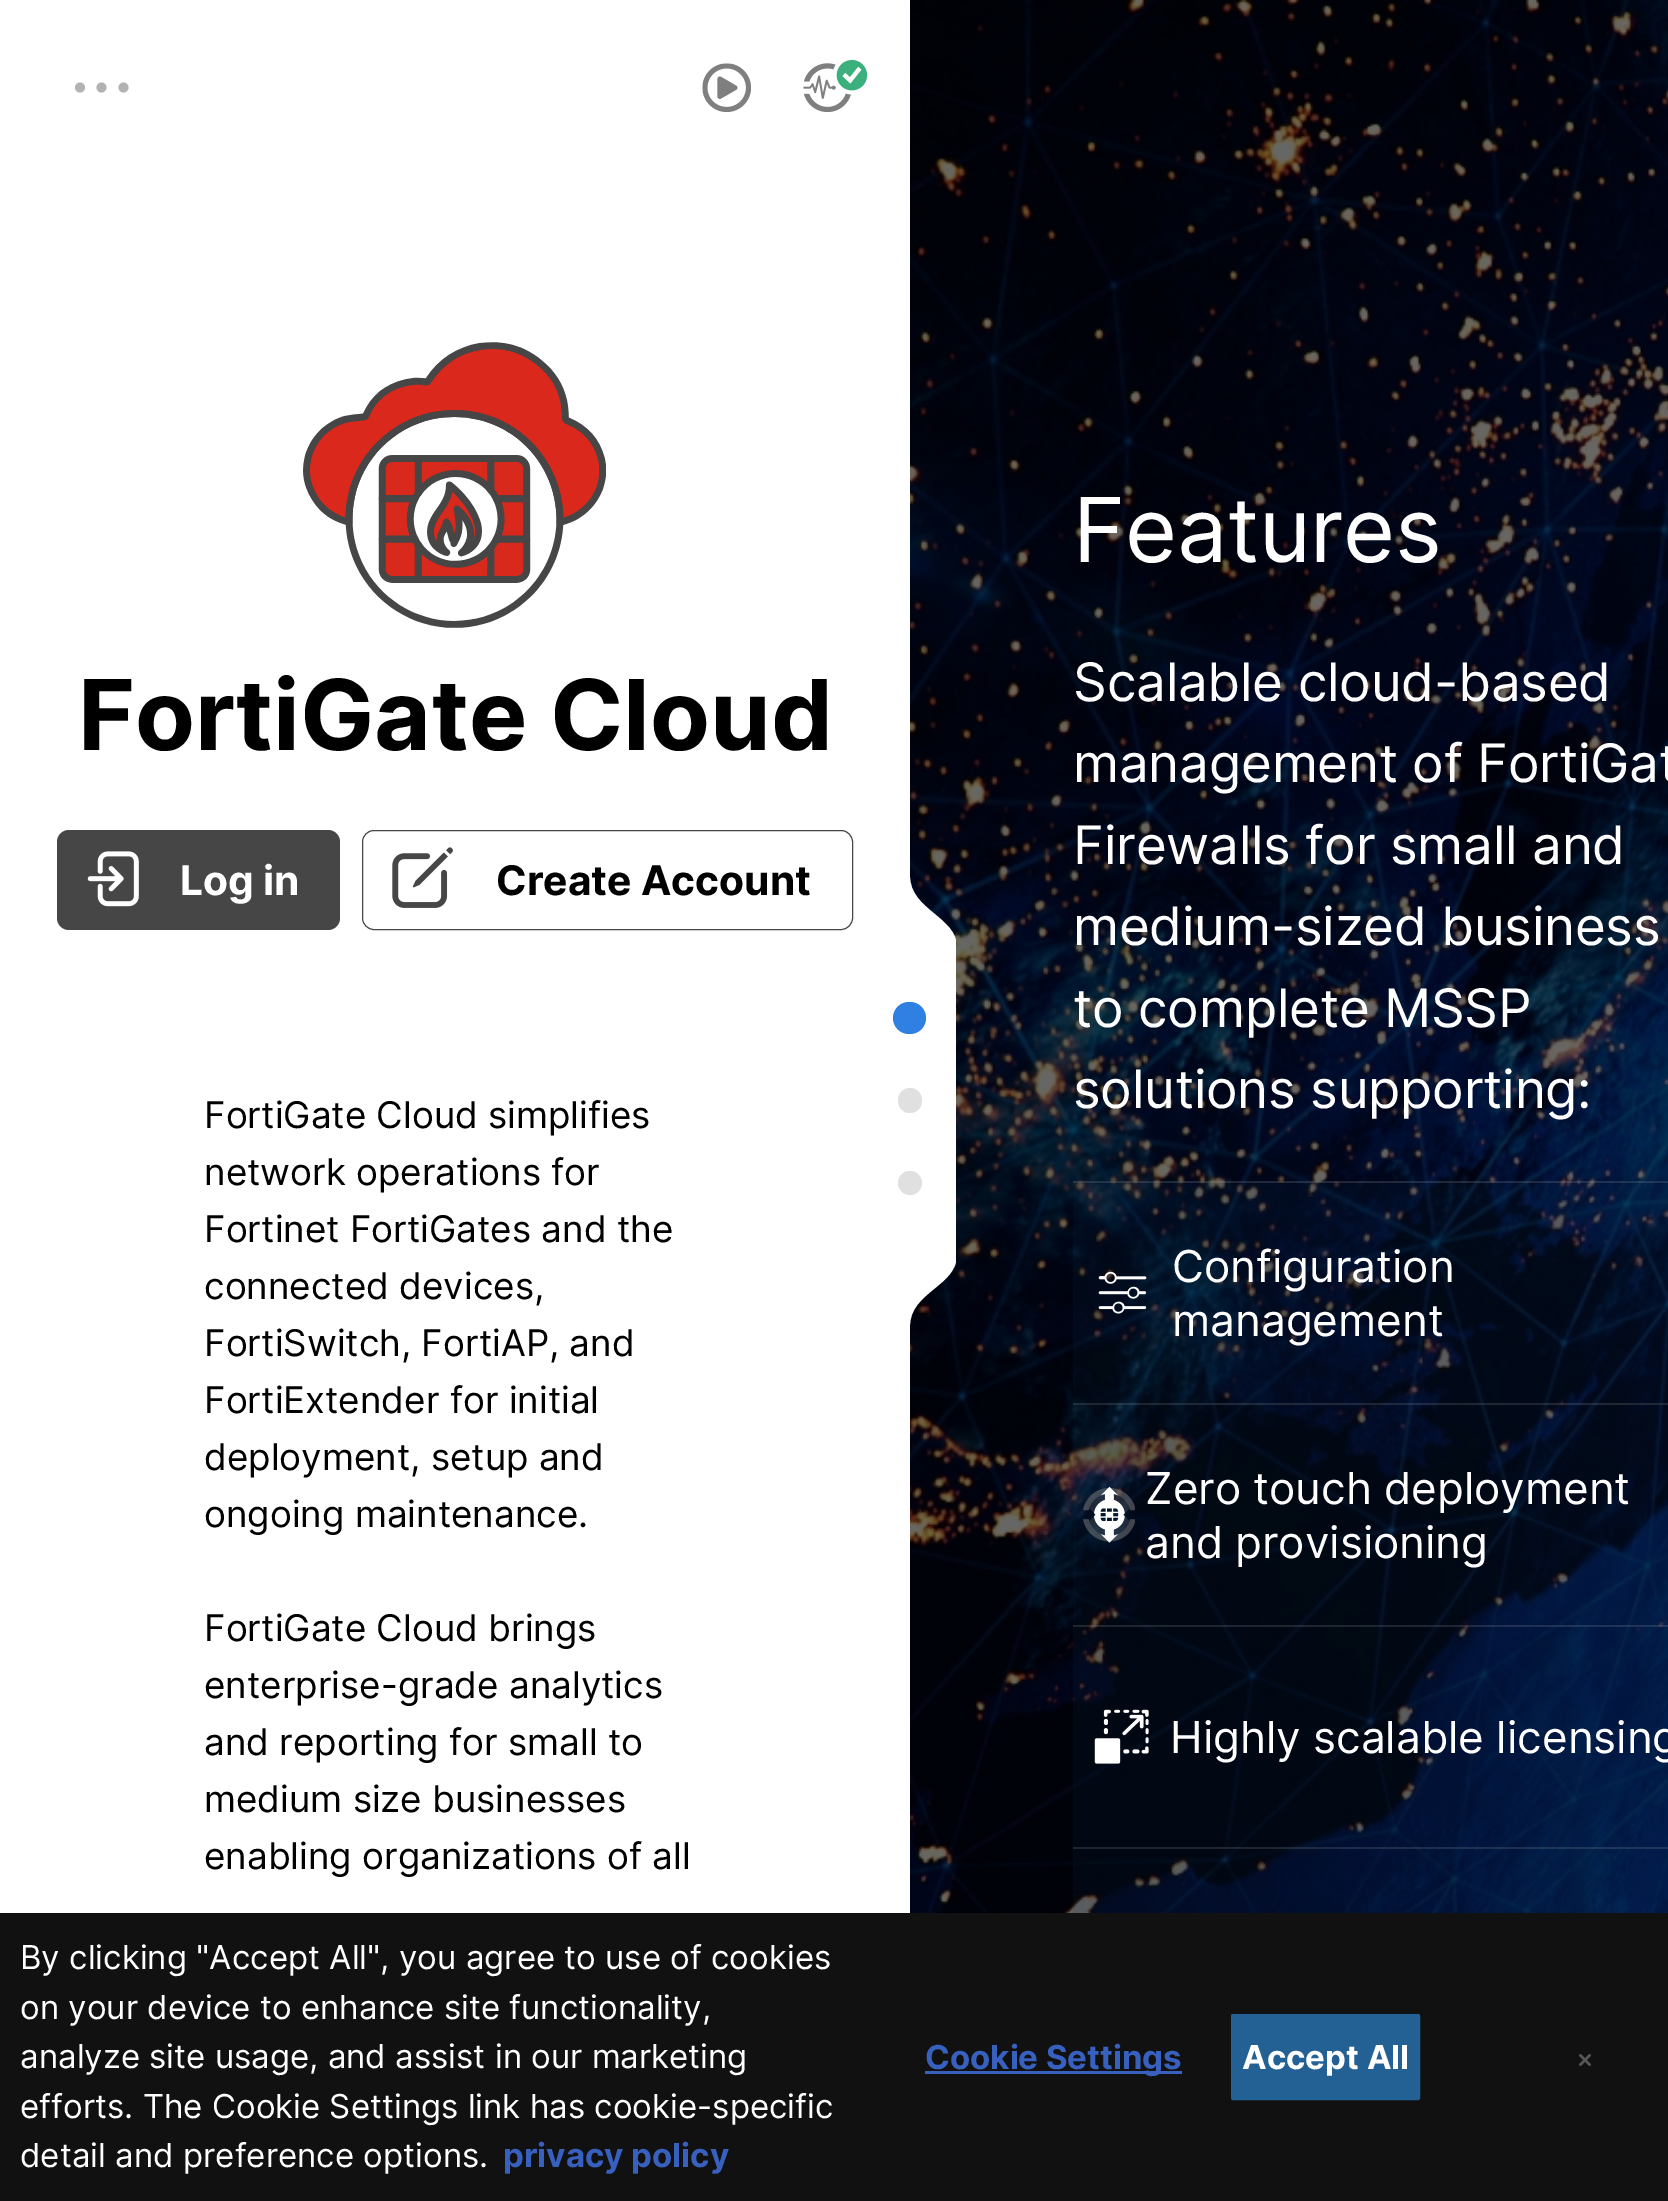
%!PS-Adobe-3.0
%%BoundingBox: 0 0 1668 2201
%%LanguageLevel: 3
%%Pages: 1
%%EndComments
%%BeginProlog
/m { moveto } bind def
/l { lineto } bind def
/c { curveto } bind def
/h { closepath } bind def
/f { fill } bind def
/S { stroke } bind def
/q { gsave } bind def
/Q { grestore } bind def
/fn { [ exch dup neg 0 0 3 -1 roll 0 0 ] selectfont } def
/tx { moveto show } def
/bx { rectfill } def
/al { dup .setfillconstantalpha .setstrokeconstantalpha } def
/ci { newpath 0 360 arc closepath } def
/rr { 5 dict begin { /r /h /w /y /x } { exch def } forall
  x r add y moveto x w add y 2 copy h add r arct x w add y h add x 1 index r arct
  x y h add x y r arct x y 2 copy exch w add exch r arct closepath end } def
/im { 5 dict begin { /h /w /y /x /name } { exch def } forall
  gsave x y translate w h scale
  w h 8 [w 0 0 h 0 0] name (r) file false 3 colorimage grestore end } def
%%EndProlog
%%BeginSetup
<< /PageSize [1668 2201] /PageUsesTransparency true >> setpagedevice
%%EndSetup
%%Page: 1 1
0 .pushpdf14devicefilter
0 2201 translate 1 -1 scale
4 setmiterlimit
1 setgray
0 0 1668 2201 bx
0.698 setgray
80 87.5 5 ci f
101.5 87.5 5 ci f
123.5 87.5 5 ci f
(image0.raw) 702 63 49 49 im
(image2.raw) 803 63 48 49 im
(image1.raw) 833 59 35 36 im
(image3.raw) 303 342 303 286 im
/Inter-Bold 97.75 fn
0 setgray
(FortiGate Cloud) 78 750 tx
0.275 setgray
57 830 283 100 12 rr f
(image4.raw) 87 851 52 56 im
/Inter-Bold 40.75 fn
1 setgray
(Log in) 180 895 tx
0.275 setgray
362.5 830.5 490 99 11.5 rr S
(image5.raw) 392 847 61 61 im
0 setgray
(Create Account) 496 895 tx
/Inter-Regular 36.75 fn
(FortiGate Cloud simplifies) 204 1128 tx
(network operations for) 204 1185 tx
(Fortinet FortiGates and the) 204 1242 tx
(connected devices,) 204 1299 tx
(FortiSwitch, FortiAP, and) 204 1356 tx
(FortiExtender for initial) 204 1413 tx
(deployment, setup and) 204 1470 tx
(ongoing maintenance.) 204 1527 tx
(FortiGate Cloud brings) 204 1641 tx
(enterprise-grade analytics) 204 1698 tx
(and reporting for small to) 204 1755 tx
(medium size businesses) 204 1812 tx
(enabling organizations of all) 204 1869 tx
(image6.raw) 910 0 758 1913 im
1 setgray
910 948 46 305 bx
q
910 876 46 72 rectclip
957 947 m 957 917 910 910 910 876 c 910 949 l 957 949 l h f
Q
0.188 0.498 0.886 setrgbcolor
893 1002 33 32 16 rr f
0.878 setgray
898 1088 24 25 12 rr f
910 1183 12 ci f
q
910 1253 46 72 rectclip
1 setgray
957 1255 m 957 1286 910 1292 910 1326 c 910 1253 l 957 1253 l h f
Q
/Inter-Regular 89.5 fn
1 setgray
1073 562 m -0.5 0 (Features) ashow
/Inter-Regular 53 fn
1073 701 m -0.25 0 (Scalable cloud-based) ashow
1073 782 m -0.25 0 (management of FortiGat) ashow
1073 864 m -0.25 0 (Firewalls for small and) ashow
1073 945 m -0.25 0 (medium-sized business) ashow
1073 1027 m -0.25 0 (to complete MSSP) ashow
1073 1108 m -0.25 0 (solutions supporting:) ashow
0.15 al
0.035 0.161 0.286 setrgbcolor
1073 1181 595 222 bx
0.8 setgray
1073 1181 595 2 bx
1 al
(image7.raw) 1098 1271 49 43 im
/Inter-Regular 44 fn
1 setgray
(Configuration) 1172 1282 tx
(management) 1172 1336 tx
0.15 al
0.035 0.161 0.286 setrgbcolor
1073 1403 595 222 bx
0.8 setgray
1073 1403 595 2 bx
1 al
(image8.raw) 1083 1486 52 57 im
1 setgray
(Zero touch deployment) 1145 1504 tx
(and provisioning) 1145 1558 tx
0.15 al
0.035 0.161 0.286 setrgbcolor
1073 1625 595 222 bx
0.8 setgray
1073 1625 595 2 bx
1 al
(image9.raw) 1094 1709 55 55 im
1 setgray
(Highly scalable licensing) 1170 1753 tx
0.15 al
0.035 0.161 0.286 setrgbcolor
1073 1847 595 66 bx
0.8 setgray
1073 1847 595 2 bx
1 al
0.067 setgray
0 1913 1668 288 bx
/Inter-Regular 33 fn
1 setgray
(By clicking "Accept All", you agree to use of cookies) 20 1969 tx
(on your device to enhance site functionality,) 20 2019 tx
(analyze site usage, and assist in our marketing) 20 2068 tx
(efforts. The Cookie Settings link has cookie-specific) 20 2118 tx
(detail and preference options.) 20 2167 tx
/Inter-Bold 33 fn
0.22 0.376 0.745 setrgbcolor
(privacy policy) 503 2167 tx
925 2071 257 3 bx
(Cookie Settings) 925 2069 tx
0.137 0.376 0.576 setrgbcolor
1231.5 2014.5 188 85 1.5 rr q f Q
S
1 setgray
(Accept All) 1242 2069 tx
(image10.raw) 1579 2054 12 12 im
.poppdf14devicefilter showpage
%%EOF
